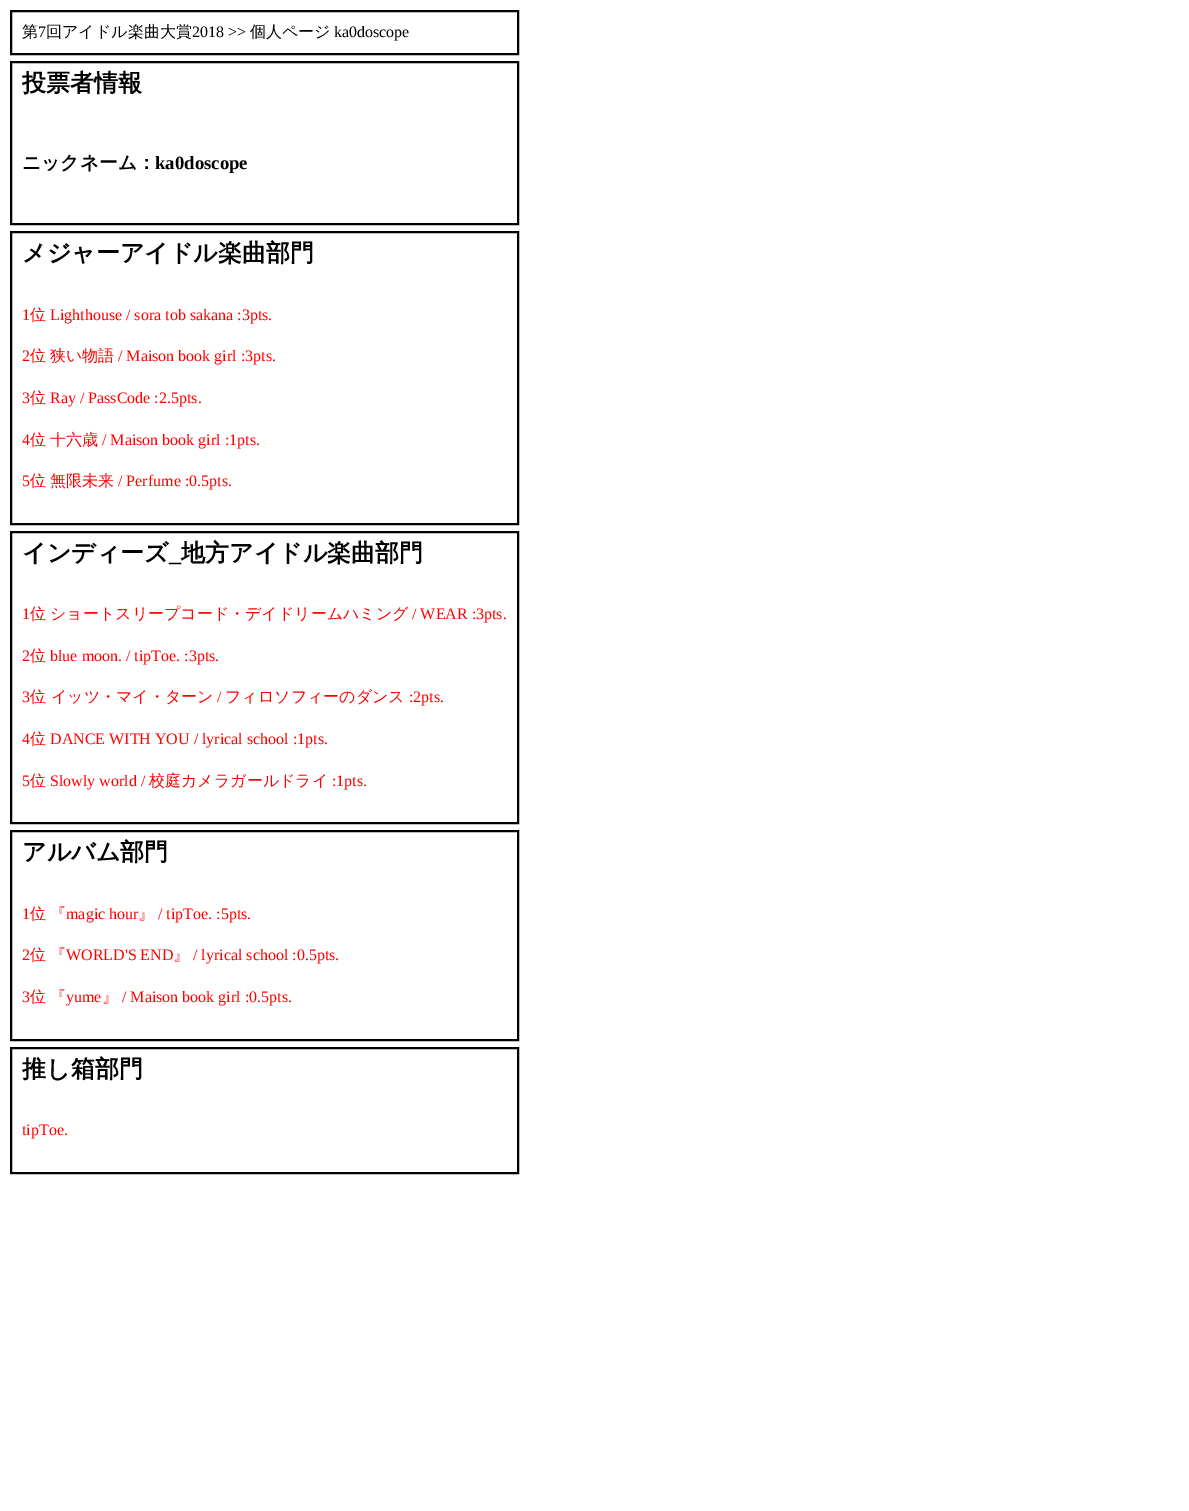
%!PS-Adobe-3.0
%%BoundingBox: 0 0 1189 1511
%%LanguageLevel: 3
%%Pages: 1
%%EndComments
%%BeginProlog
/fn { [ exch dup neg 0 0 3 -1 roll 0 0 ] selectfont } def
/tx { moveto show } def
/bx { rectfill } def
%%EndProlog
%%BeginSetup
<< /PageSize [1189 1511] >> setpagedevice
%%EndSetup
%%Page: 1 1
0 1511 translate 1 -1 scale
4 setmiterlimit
1 setgray
0 0 1189 1511 bx
0 setgray
10.5 10.5 508 44 rectstroke
11.5 11.5 506 42 rectstroke
/WenQuanYiZenHei-Medium 16 fn
(第) 22 37 tx
/LiberationSerif-Regular 16 fn
(7) 38 37 tx
/WenQuanYiZenHei-Medium 16 fn
(回アイドル楽曲大賞) 46 37 tx
/LiberationSerif-Regular 16 fn
(2018 >>) 192 37 tx
/WenQuanYiZenHei-Medium 16 fn
(個人ページ) 250 37 tx
/LiberationSerif-Regular 16 fn
(ka0doscope) 334 37 tx
10.5 61.5 508 163 rectstroke
11.5 62.5 506 161 rectstroke
/WenQuanYiZenHei-Bold 24 fn
(投票者情報) 22 91 tx
/WenQuanYiZenHei-Bold 18.75 fn
(ニックネーム：) 22 169 tx
/LiberationSerif-Bold 18.75 fn
(ka0doscope) 155 169 tx
10.5 231.5 508 293 rectstroke
11.5 232.5 506 291 rectstroke
/WenQuanYiZenHei-Bold 24 fn
(メジャーアイドル楽曲部門) 22 261 tx
/LiberationSerif-Regular 16 fn
1 0 0 setrgbcolor
(1) 22 320 tx
/WenQuanYiZenHei-Medium 16 fn
(位) 30 320 tx
/LiberationSerif-Regular 16 fn
(Lighthouse / sora tob sakana :3pts.) 50 320 tx
(2) 22 361 tx
/WenQuanYiZenHei-Medium 16 fn
(位) 30 361 tx
(狭い物語) 50 361 tx
/LiberationSerif-Regular 16 fn
(/ Maison book girl :3pts.) 118 361 tx
(3) 22 403 tx
/WenQuanYiZenHei-Medium 16 fn
(位) 30 403 tx
/LiberationSerif-Regular 16 fn
(Ray / PassCode :2.5pts.) 50 403 tx
(4) 22 445 tx
/WenQuanYiZenHei-Medium 16 fn
(位) 30 445 tx
(十六歳) 50 445 tx
/LiberationSerif-Regular 16 fn
(/ Maison book girl :1pts.) 102 445 tx
(5) 22 486 tx
/WenQuanYiZenHei-Medium 16 fn
(位) 30 486 tx
(無限未来) 50 486 tx
/LiberationSerif-Regular 16 fn
(/ Perfume :0.5pts.) 118 486 tx
0 setgray
10.5 531.5 508 292 rectstroke
11.5 532.5 506 290 rectstroke
/WenQuanYiZenHei-Bold 24 fn
(インディーズ) 22 561 tx
/LiberationSerif-Bold 24 fn
(_) 169 561 tx
/WenQuanYiZenHei-Bold 24 fn
(地方アイドル楽曲部門) 181 561 tx
/LiberationSerif-Regular 16 fn
1 0 0 setrgbcolor
(1) 22 619 tx
/WenQuanYiZenHei-Medium 16 fn
(位) 30 619 tx
(ショートスリープコード・デイドリームハミング) 50 619 tx
/LiberationSerif-Regular 16 fn
(/ WEAR :3pts.) 412 619 tx
(2) 22 661 tx
/WenQuanYiZenHei-Medium 16 fn
(位) 30 661 tx
/LiberationSerif-Regular 16 fn
(blue moon. / tipToe. :3pts.) 50 661 tx
(3) 22 702 tx
/WenQuanYiZenHei-Medium 16 fn
(位 イッツ・マイ・ターン) 30 702 tx
/LiberationSerif-Regular 16 fn
(/) 217 702 tx
/WenQuanYiZenHei-Medium 16 fn
(フィロソフィーのダンス) 225 702 tx
/LiberationSerif-Regular 16 fn
(:2pts.) 409 702 tx
(4) 22 744 tx
/WenQuanYiZenHei-Medium 16 fn
(位) 30 744 tx
/LiberationSerif-Regular 16 fn
(DANCE WITH YOU / lyrical school :1pts.) 50 744 tx
(5) 22 786 tx
/WenQuanYiZenHei-Medium 16 fn
(位) 30 786 tx
/LiberationSerif-Regular 16 fn
(Slowly world /) 50 786 tx
/WenQuanYiZenHei-Medium 16 fn
(校庭カメラガールドライ) 149 786 tx
/LiberationSerif-Regular 16 fn
(:1pts.) 332 786 tx
0 setgray
10.5 830.5 508 210 rectstroke
11.5 831.5 506 208 rectstroke
/WenQuanYiZenHei-Bold 24 fn
(アルバム部門) 22 860 tx
/LiberationSerif-Regular 16 fn
1 0 0 setrgbcolor
(1) 22 919 tx
/WenQuanYiZenHei-Medium 16 fn
(位) 30 919 tx
(『) 50 919 tx
/LiberationSerif-Regular 16 fn
(magic hour) 66 919 tx
/WenQuanYiZenHei-Medium 16 fn
(』) 138 919 tx
/LiberationSerif-Regular 16 fn
(/ tipToe. :5pts.) 158 919 tx
(2) 22 960 tx
/WenQuanYiZenHei-Medium 16 fn
(位) 30 960 tx
(『) 50 960 tx
/LiberationSerif-Regular 16 fn
(WORLD'S END) 66 960 tx
/WenQuanYiZenHei-Medium 16 fn
(』) 173 960 tx
/LiberationSerif-Regular 16 fn
(/ lyrical school :0.5pts.) 193 960 tx
(3) 22 1002 tx
/WenQuanYiZenHei-Medium 16 fn
(位) 30 1002 tx
(『) 50 1002 tx
/LiberationSerif-Regular 16 fn
(yume) 66 1002 tx
/WenQuanYiZenHei-Medium 16 fn
(』) 102 1002 tx
/LiberationSerif-Regular 16 fn
(/ Maison book girl :0.5pts.) 122 1002 tx
0 setgray
10.5 1047.5 508 126 rectstroke
11.5 1048.5 506 124 rectstroke
/WenQuanYiZenHei-Bold 24 fn
(推し箱部門) 22 1077 tx
/LiberationSerif-Regular 16 fn
1 0 0 setrgbcolor
(tipToe.) 22 1135 tx
showpage
%%EOF
